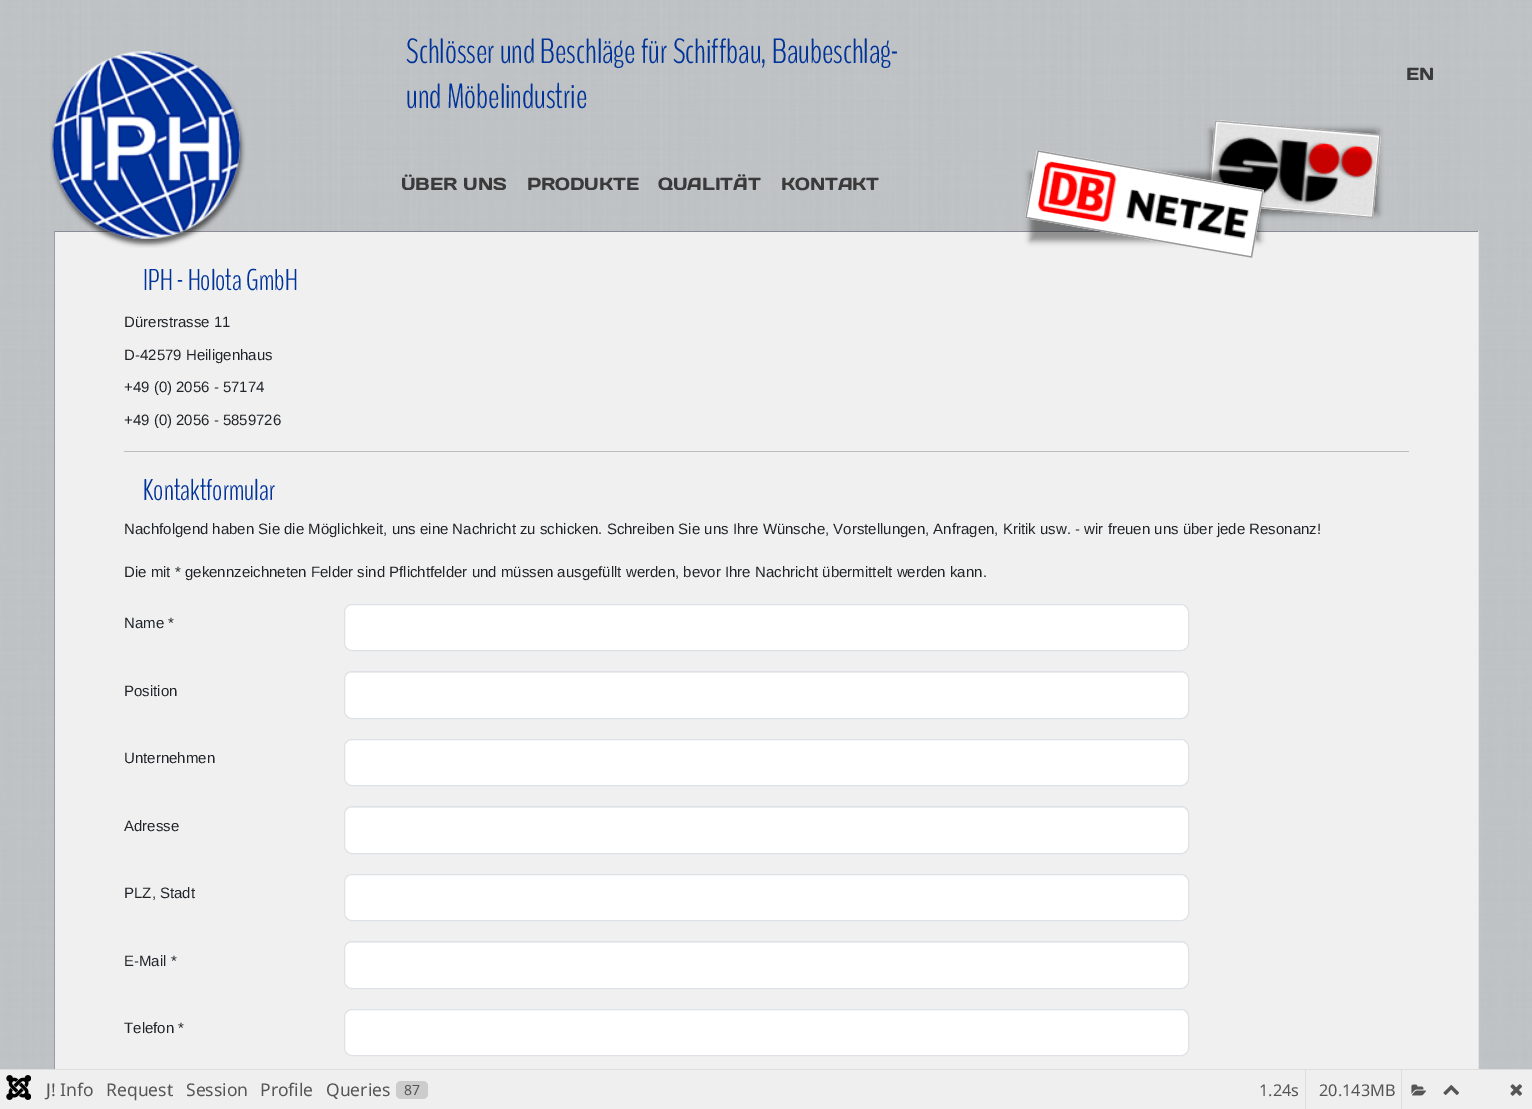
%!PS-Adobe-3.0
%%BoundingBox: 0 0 1532 1109
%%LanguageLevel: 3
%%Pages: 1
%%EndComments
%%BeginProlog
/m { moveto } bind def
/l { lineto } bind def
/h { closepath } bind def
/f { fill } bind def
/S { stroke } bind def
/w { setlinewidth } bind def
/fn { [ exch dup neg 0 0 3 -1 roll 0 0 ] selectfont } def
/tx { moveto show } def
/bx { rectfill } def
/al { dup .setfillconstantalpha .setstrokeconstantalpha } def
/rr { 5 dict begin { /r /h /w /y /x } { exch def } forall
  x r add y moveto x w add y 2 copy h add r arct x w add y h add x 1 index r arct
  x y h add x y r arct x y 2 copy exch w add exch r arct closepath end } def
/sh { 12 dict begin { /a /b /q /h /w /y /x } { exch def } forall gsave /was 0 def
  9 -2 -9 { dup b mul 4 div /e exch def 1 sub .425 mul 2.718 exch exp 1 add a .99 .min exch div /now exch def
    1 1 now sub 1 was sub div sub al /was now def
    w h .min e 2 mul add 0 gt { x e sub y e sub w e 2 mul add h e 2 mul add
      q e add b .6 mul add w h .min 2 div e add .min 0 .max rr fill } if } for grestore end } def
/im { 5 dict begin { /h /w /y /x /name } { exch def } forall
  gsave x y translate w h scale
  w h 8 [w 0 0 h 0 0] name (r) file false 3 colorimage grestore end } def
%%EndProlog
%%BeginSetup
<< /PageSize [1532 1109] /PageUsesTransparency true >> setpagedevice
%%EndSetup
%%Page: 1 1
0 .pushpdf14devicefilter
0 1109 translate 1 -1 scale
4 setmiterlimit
1 setgray
0 0 1532 1109 bx
(image0.raw) 0 0 1532 1069 im
0.941 setgray
55 232 1423 837 bx
0.549 0.549 0.6 setrgbcolor
54 231 1425 1 bx
0.612 0.612 0.663 setrgbcolor
54 231 1 838 bx
(image1.raw) 50 51 196 197 im
/BenchNine-Light 35 fn
0 0.2 0.6 setrgbcolor
(Schlösser und Beschläge für Schiffbau, Baubeschlag-) 406 63 tx
(und Möbelindustrie) 406 108 tx
/DaysOne-Regular 17.5 fn
0.227 setgray
(EN) 1406 80 tx
(ÜBER UNS) 401 190 tx
(PRODUKTE) 527 190 tx
(QUALITÄT) 658 190 tx
(KONTAKT) 781 190 tx
0 setgray
1211 130 167 84 0 3 0.4 sh
1 setgray
1215 120 m 1381 135 l 1373 218 l 1208 204 l h f
(image3.raw) 1212 123 166 93 im
0.667 setgray
1.3 w
1215.5 121 m 1380 135 l 1372.5 217.5 l 1208.5 203 l h S
0 setgray
1030 173 230 68 0 3 0.4 sh
1 setgray
1037 150 m 1264 190 l 1252 258 l 1025 218 l h f
(image2.raw) 1037 161 213 78 im
0.6 setgray
1038 151 m 1263 191 l 1251.5 257 l 1026 217.5 l h S
0.89 setgray
1478 231 1 838 bx
/BenchNine-Light 30 fn
0 0.2 0.6 setrgbcolor
(IPH - Holota GmbH) 143 290 tx
/LiberationSans-Regular 15 fn
0.129 0.145 0.161 setrgbcolor
(Dürerstrasse 11) 124 327 tx
(D-42579 Heiligenhaus) 124 360 tx
(+49 \(0\) 2056 - 57174) 124 392 tx
(+49 \(0\) 2056 - 5859726) 124 425 tx
0.737 0.741 0.745 setrgbcolor
124 451 1285 1 bx
/BenchNine-Light 30 fn
0 0.2 0.6 setrgbcolor
(Kontaktformular) 143 500 tx
/LiberationSans-Regular 15 fn
0.129 0.145 0.161 setrgbcolor
(Nachfolgend haben Sie die Möglichkeit, uns eine Nachricht zu schicken. Schreiben Sie uns Ihre Wünsche, Vorstellungen, Anfragen, Kritik usw. - wir freuen uns über jede Resonanz!) 124 534 tx
(Die mit * gekennzeichneten Felder sind Pflichtfelder und müssen ausgefüllt werden, bevor Ihre Nachricht übermittelt werden kann.) 124 577 tx
(Name *) 124 628 tx
1 setgray
345 605 843 45 6 rr f
0.871 0.886 0.902 setrgbcolor
1 w
344.5 604.5 844 46 7.5 rr S
0.129 0.145 0.161 setrgbcolor
(Position) 124 696 tx
1 setgray
345 673 843 45 6 rr f
0.871 0.886 0.902 setrgbcolor
344.5 671.5 844 47 7.5 rr S
0.129 0.145 0.161 setrgbcolor
(Unternehmen) 124 763 tx
1 setgray
345 740 843 45 6 rr f
0.871 0.886 0.902 setrgbcolor
344.5 739.5 844 46 7.5 rr S
0.129 0.145 0.161 setrgbcolor
(Adresse) 124 831 tx
1 setgray
345 808 843 45 6 rr f
0.871 0.886 0.902 setrgbcolor
344.5 806.5 844 47 7.5 rr S
0.129 0.145 0.161 setrgbcolor
(PLZ, Stadt) 124 898 tx
1 setgray
345 875 843 45 6 rr f
0.871 0.886 0.902 setrgbcolor
344.5 874.5 844 46 7.5 rr S
0.129 0.145 0.161 setrgbcolor
(E-Mail *) 124 966 tx
1 setgray
345 943 843 45 6 rr f
0.871 0.886 0.902 setrgbcolor
344.5 941.5 844 47 7.5 rr S
0.129 0.145 0.161 setrgbcolor
(Telefon *) 124 1033 tx
1 setgray
345 1010 843 45 6 rr f
0.871 0.886 0.902 setrgbcolor
344.5 1009.5 844 46 7.5 rr S
0.867 setgray
0 1069 1532 1 bx
0.937 setgray
0 1070 1532 39 bx
(image4.raw) 6 1075 25 25 im
/NotoSans-Regular 17.5 fn
0.333 setgray
(J! Info) 46 1096 tx
(Request) 106 1096 tx
(Session) 186 1096 tx
(Profile) 260 1096 tx
(Queries) 326 1096 tx
0.8 setgray
396 1081 32 18 5 rr f
/NotoSans-Regular 14 fn
0.333 setgray
(87) 404 1095 tx
0.867 setgray
1305 1070 1 39 bx
/NotoSans-Regular 16.25 fn
0.333 setgray
(1.24s) 1259 1096 tx
0.867 setgray
1401 1070 1 39 bx
0.333 setgray
(20.143MB) 1319 1096 tx
(image5.raw) 1411 1084 15 12 im
(image6.raw) 1443 1085 17 10 im
(image7.raw) 1510 1084 12 12 im
.poppdf14devicefilter showpage
%%EOF
